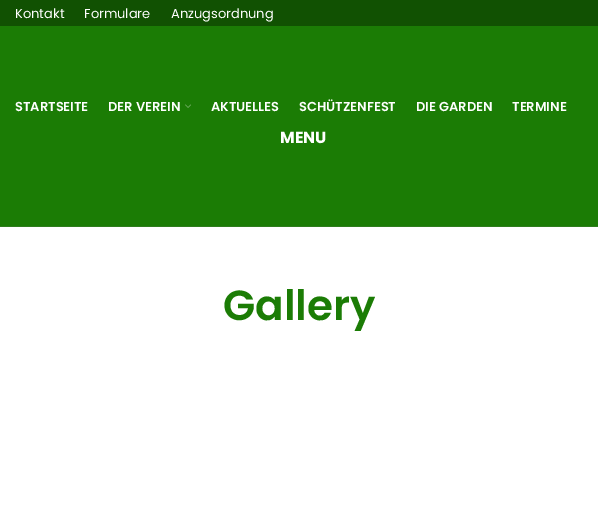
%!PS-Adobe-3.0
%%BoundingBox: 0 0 598 525
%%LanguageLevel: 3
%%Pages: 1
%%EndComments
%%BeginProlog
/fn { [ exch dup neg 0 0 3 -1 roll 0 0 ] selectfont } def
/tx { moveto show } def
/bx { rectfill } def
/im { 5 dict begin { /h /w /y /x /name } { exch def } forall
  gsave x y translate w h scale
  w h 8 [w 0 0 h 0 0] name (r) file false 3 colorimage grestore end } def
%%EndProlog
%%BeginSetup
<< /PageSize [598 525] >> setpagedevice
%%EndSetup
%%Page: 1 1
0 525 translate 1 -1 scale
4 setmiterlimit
1 setgray
0 0 598 525 bx
0.067 0.318 0.008 setrgbcolor
0 0 598 26 bx
/Poppins-Regular 13 fn
1 setgray
(Kontakt) 15 18 tx
(Formulare) 84 18 tx
(Anzugsordnung) 171 18 tx
0.106 0.486 0.02 setrgbcolor
0 26 598 200 bx
0.184 0.49 0.118 setrgbcolor
0 226 598 1 bx
/Poppins-SemiBold 13 fn
1 setgray
(STARTSEITE) 15 111 tx
(DER VEREIN) 108 111 tx
(image0.raw) 185 104 6 4 im
(AKTUELLES) 211 111 tx
(SCHÜTZENFEST) 299 111 tx
(DIE GARDEN) 416 111 tx
(TERMINE) 512 111 tx
/Poppins-Bold 16 fn
(MENU) 280 143 tx
/Poppins-SemiBold 42 fn
0.106 0.486 0.02 setrgbcolor
(Gallery) 223 320 tx
showpage
%%EOF
